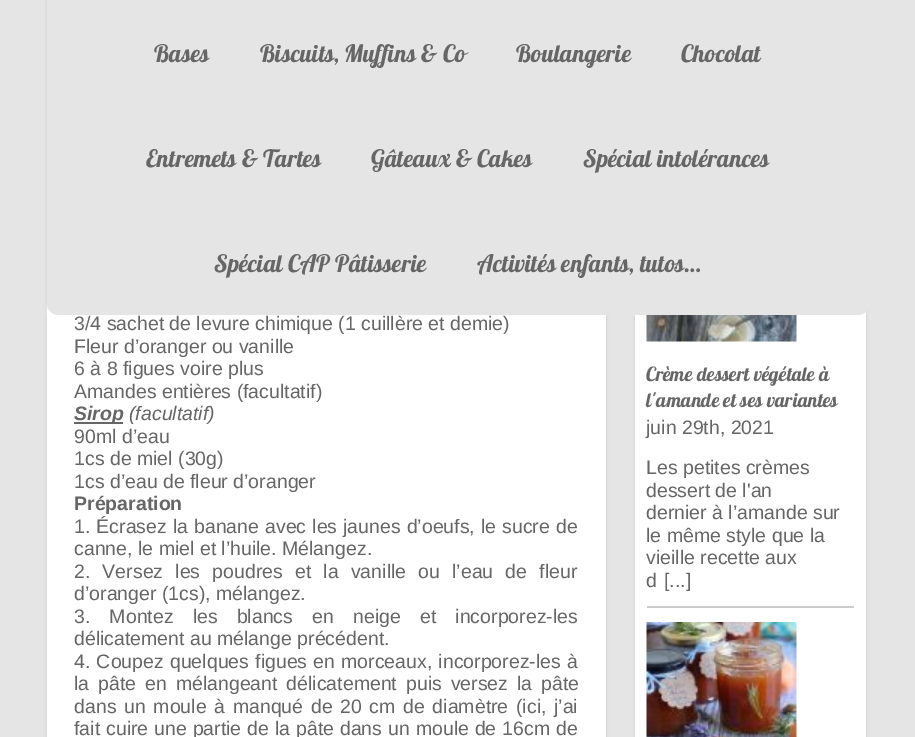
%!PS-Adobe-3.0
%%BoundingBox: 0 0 915 737
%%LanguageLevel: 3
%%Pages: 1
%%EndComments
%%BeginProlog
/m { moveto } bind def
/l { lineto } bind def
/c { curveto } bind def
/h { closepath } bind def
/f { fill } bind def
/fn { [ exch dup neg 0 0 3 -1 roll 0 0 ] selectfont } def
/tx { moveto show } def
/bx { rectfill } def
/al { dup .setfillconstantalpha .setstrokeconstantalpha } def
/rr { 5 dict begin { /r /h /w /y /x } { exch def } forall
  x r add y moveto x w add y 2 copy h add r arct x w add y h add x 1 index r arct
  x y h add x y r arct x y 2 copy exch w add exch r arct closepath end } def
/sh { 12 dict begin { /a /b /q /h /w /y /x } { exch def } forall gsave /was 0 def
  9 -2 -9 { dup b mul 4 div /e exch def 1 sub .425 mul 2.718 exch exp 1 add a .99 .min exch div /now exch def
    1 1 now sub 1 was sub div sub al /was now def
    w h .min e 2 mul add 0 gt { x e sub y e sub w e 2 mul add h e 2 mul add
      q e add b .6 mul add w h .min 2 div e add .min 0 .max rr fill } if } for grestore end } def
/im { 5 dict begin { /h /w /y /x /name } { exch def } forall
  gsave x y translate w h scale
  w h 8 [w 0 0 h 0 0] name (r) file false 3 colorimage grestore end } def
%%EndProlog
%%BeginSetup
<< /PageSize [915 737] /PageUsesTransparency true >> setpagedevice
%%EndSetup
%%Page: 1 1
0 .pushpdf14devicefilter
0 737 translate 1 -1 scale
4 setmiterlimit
0.898 setgray
0 0 915 737 bx
0 setgray
47 -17 559 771 12 1.5 0.1 sh
1 setgray
47 303 559 434 bx
0 setgray
635 -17 231 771 12 1.5 0.1 sh
1 setgray
635 311 231 426 bx
47 0 m 870 0 l 870 303 l 870 309.5 864.5 315 858 315 c 59 315 l 52.5 315 47 309.5 47 303 c h f
(image0.raw) 46 0 824 315 im
/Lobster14-Regular 24 fn
0.4 setgray
(Bases) 154 62 tx
(Biscuits, Muffins & Co) 260 62 tx
(Boulangerie) 516 62 tx
(Chocolat) 681 62 tx
(Entremets & Tartes) 146 167 tx
(Gâteaux & Cakes) 371 167 tx
(Spécial intolérances) 583 167 tx
(Spécial CAP Pâtisserie) 214 272 tx
(Activités enfants, tutos…) 477 272 tx
/LiberationSans-Regular 19.5 fn
(3/4 sachet de levure chimique \(1 cuillère et demie\)) 74 330 tx
(Fleur d’oranger ou vanille) 74 353 tx
(6 à 8 figues voire plus) 74 375 tx
(Amandes entières \(facultatif\)) 74 398 tx
74 422 49 2 bx
/LiberationSans-BoldItalic 19.5 fn
(Sirop) 74 420 tx
/LiberationSans-Italic 19.5 fn
(\(facultatif\)) 129 420 tx
/LiberationSans-Regular 19.5 fn
(90ml d’eau) 74 443 tx
(1cs de miel \(30g\)) 74 465 tx
(1cs d’eau de fleur d’oranger) 74 488 tx
/LiberationSans-Bold 19.5 fn
(Préparation) 74 510 tx
/LiberationSans-Regular 19.5 fn
74 533 m 0.6 0 32 (1. Écrasez la banane avec les jaunes d’oeufs, le sucre de) widthshow
(canne, le miel et l’huile. Mélangez.) 74 555 tx
74 578 m 6.75 0 32 (2. Versez les poudres et la vanille ou l’eau de fleur) widthshow
(d’oranger \(1cs\), mélangez.) 74 600 tx
74 623 m 13.75 0 32 (3. Montez les blancs en neige et incorporez-les) widthshow
(délicatement au mélange précédent.) 74 645 tx
74 668 m 0.75 0 32 (4. Coupez quelques figues en morceaux, incorporez-les à) widthshow
74 690 m 3.5 0 32 (la pâte en mélangeant délicatement puis versez la pâte) widthshow
74 713 m 2.25 0 32 (dans un moule à manqué de 20 cm de diamètre \(ici, j’ai) widthshow
74 735 m 0.5 0 32 (fait cuire une partie de la pâte dans un moule de 16cm de) widthshow
0.8 setgray
647 606 207 2 bx
(image1.raw) 646 315 151 27 im
/Lobster14-Regular 19.5 fn
0.4 setgray
(Crème dessert végétale à) 646 381 tx
(l'amande et ses variantes) 646 407 tx
/LiberationSans-Regular 19.5 fn
(juin 29th, 2021) 646 434 tx
(Les petites crèmes) 646 474 tx
(dessert de l'an) 646 497 tx
(dernier à l’amande sur) 646 519 tx
(le même style que la) 646 542 tx
(vieille recette aux) 646 564 tx
(d) 646 587 tx
([...]) 664 587 tx
(image2.raw) 646 622 151 115 im
.poppdf14devicefilter showpage
%%EOF
